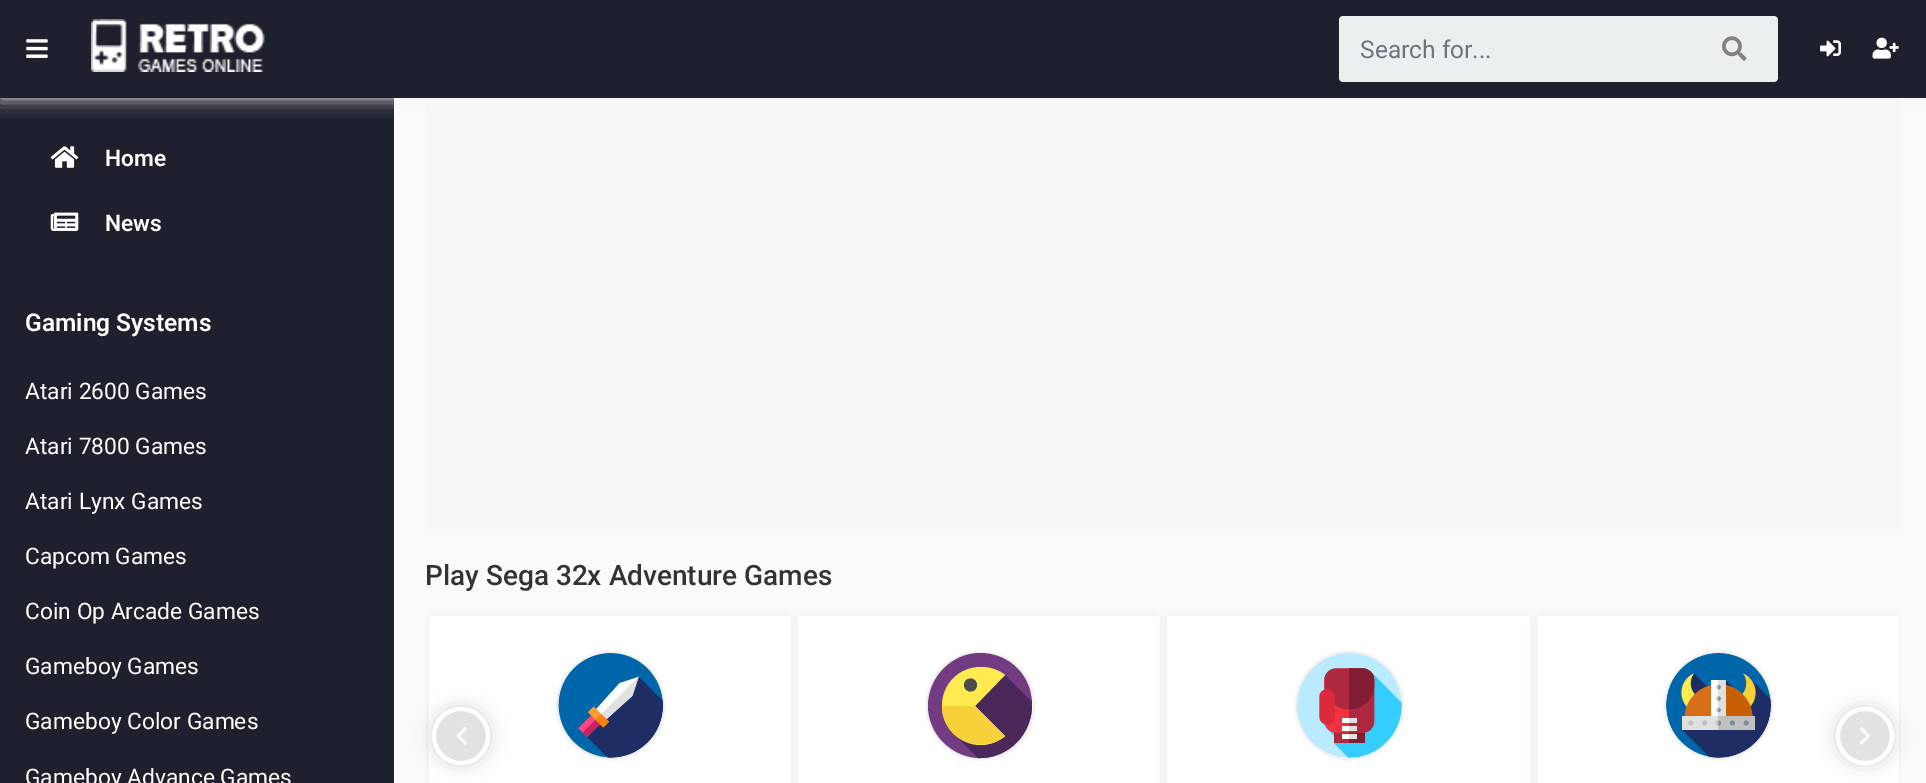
%!PS-Adobe-3.0
%%BoundingBox: 0 0 1926 783
%%LanguageLevel: 3
%%Pages: 1
%%EndComments
%%BeginProlog
/m { moveto } bind def
/l { lineto } bind def
/c { curveto } bind def
/h { closepath } bind def
/f { fill } bind def
/S { stroke } bind def
/q { gsave } bind def
/Q { grestore } bind def
/w { setlinewidth } bind def
/fn { [ exch dup neg 0 0 3 -1 roll 0 0 ] selectfont } def
/tx { moveto show } def
/bx { rectfill } def
/al { dup .setfillconstantalpha .setstrokeconstantalpha } def
/ci { newpath 0 360 arc closepath } def
/rr { 5 dict begin { /r /h /w /y /x } { exch def } forall
  x r add y moveto x w add y 2 copy h add r arct x w add y h add x 1 index r arct
  x y h add x y r arct x y 2 copy exch w add exch r arct closepath end } def
/sh { 12 dict begin { /a /b /q /h /w /y /x } { exch def } forall gsave /was 0 def
  9 -2 -9 { dup b mul 4 div /e exch def 1 sub .425 mul 2.718 exch exp 1 add a .99 .min exch div /now exch def
    1 1 now sub 1 was sub div sub al /was now def
    w h .min e 2 mul add 0 gt { x e sub y e sub w e 2 mul add h e 2 mul add
      q e add b .6 mul add w h .min 2 div e add .min 0 .max rr fill } if } for grestore end } def
/im { 5 dict begin { /h /w /y /x /name } { exch def } forall
  gsave x y translate w h scale
  w h 8 [w 0 0 h 0 0] name (r) file false 3 colorimage grestore end } def
%%EndProlog
%%BeginSetup
<< /PageSize [1926 783] /PageUsesTransparency true >> setpagedevice
%%EndSetup
%%Page: 1 1
0 .pushpdf14devicefilter
0 783 translate 1 -1 scale
4 setmiterlimit
0.98 setgray
0 0 1926 783 bx
0.122 0.125 0.18 setrgbcolor
0 98 394 685 bx
0.969 setgray
425 5 1476 525 4 rr f
0.949 setgray
0 0 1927 98 0 9 1 sh
0.122 0.125 0.18 setrgbcolor
0 0 1926 98 bx
(image0.raw) 26 39 22 19 im
(image1.raw) 91 19 174 53 im
0.925 0.937 0.941 setrgbcolor
1343 16 m 1692 16 l 1692 82 l 1343 82 l 1341 82 1339 80 1339 78 c 1339 20 l 1339 18 1341 16 1343 16 c h f
/Roboto-Regular 24.5 fn
0.424 0.459 0.49 setrgbcolor
(Search for...) 1360 58 tx
0.925 0.937 0.941 setrgbcolor
1691 16 m 1774 16 l 1776 16 1778 18 1778 20 c 1778 78 l 1778 80 1776 82 1774 82 c 1691 82 l h f
(image2.raw) 1722 36 25 25 im
(image3.raw) 1820 40 21 17 im
(image4.raw) 1872 37 27 22 im
(image5.raw) 50 146 29 22 im
/Roboto-SemiBold 22.75 fn
1 setgray
(Home) 105 166 tx
(image6.raw) 50 212 29 19 im
(News) 105 231 tx
/Roboto-SemiBold 24.5 fn
(Gaming Systems) 25 331 tx
/Roboto-Regular 22.75 fn
(Atari 2600 Games) 25 399 tx
(Atari 7800 Games) 25 454 tx
(Atari Lynx Games) 25 509 tx
(Capcom Games) 25 564 tx
(Coin Op Arcade Games) 25 619 tx
(Gameboy Games) 25 674 tx
(Gameboy Color Games) 25 729 tx
(Gameboy Advance Games) 25 785 tx
/Roboto-Medium 28 fn
0.2 setgray
(Play Sega 32x Adventure Games) 425 585 tx
q
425 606 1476 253 rectclip
0.925 setgray
429 616 362 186 4 5 1 sh
Q
1 setgray
429 616 362 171 4 rr f
0.8 setgray
558 653 105 105 52.5 2 1 sh
0.984 setgray
610.5 705.5 52.5 ci f
(image7.raw) 558 653 105 105 im
0.925 setgray
798 616 362 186 4 5 1 sh
1 setgray
798 616 362 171 4 rr f
0.8 setgray
928 653 105 105 52.5 2 1 sh
0.984 setgray
980.5 705.5 52.5 ci f
0.451 0.235 0.51 setrgbcolor
980 653 m 995 653 1008 659 1017 668 c 1027 678 1032 691 1032 705 c 1032 734 1009 758 980 758 c 966 758 953 752 943 742 c 934 733 928 720 928 706 c 928 677 952 653 980 653 c h f
0.294 0.157 0.353 setrgbcolor
1032 705 m 1032 702 l 1005 675 l 972 700 l 953 733 l 978 758 l 1007 759 1032 735 1032 705 c h f
1 0.922 0.314 setrgbcolor
975 706 m 1005 675 l 999 670 990 667 981 667 c 959 667 942 684 942 706 c 942 727 959 745 981 745 c 990 745 999 741 1005 736 c h f
0.969 0.82 0.224 setrgbcolor
942 706 m 942 739 981 756 1005 736 c 975 706 l h f
0.302 setgray
970.5 685 6.5 ci f
0.925 setgray
1167 616 363 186 4 5 1 sh
1 setgray
1167 616 363 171 4 rr f
0.8 setgray
1297 653 105 105 52.5 2 1 sh
0.984 setgray
1349.5 705.5 52.5 ci f
(image8.raw) 1297 653 105 105 im
q
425 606 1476 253 rectclip
0.925 setgray
1537 616 362 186 4 5 1 sh
Q
1 setgray
1537 616 362 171 4 rr f
0.8 setgray
1666 653 105 105 52.5 2 1 sh
0.984 setgray
1718.5 705.5 52.5 ci f
(image9.raw) 1666 653 105 105 im
0.8 setgray
432 707 58 58 29 9 0.8 sh
0.886 setgray
461 736 27 ci q f Q
1 setgray
4 w
S
(image10.raw) 456 727 11 18 im
0.8 setgray
1836 707 58 58 29 9 0.8 sh
0.886 setgray
1865 736 27 ci q f Q
1 setgray
S
(image11.raw) 1859 727 12 18 im
.poppdf14devicefilter showpage
%%EOF
